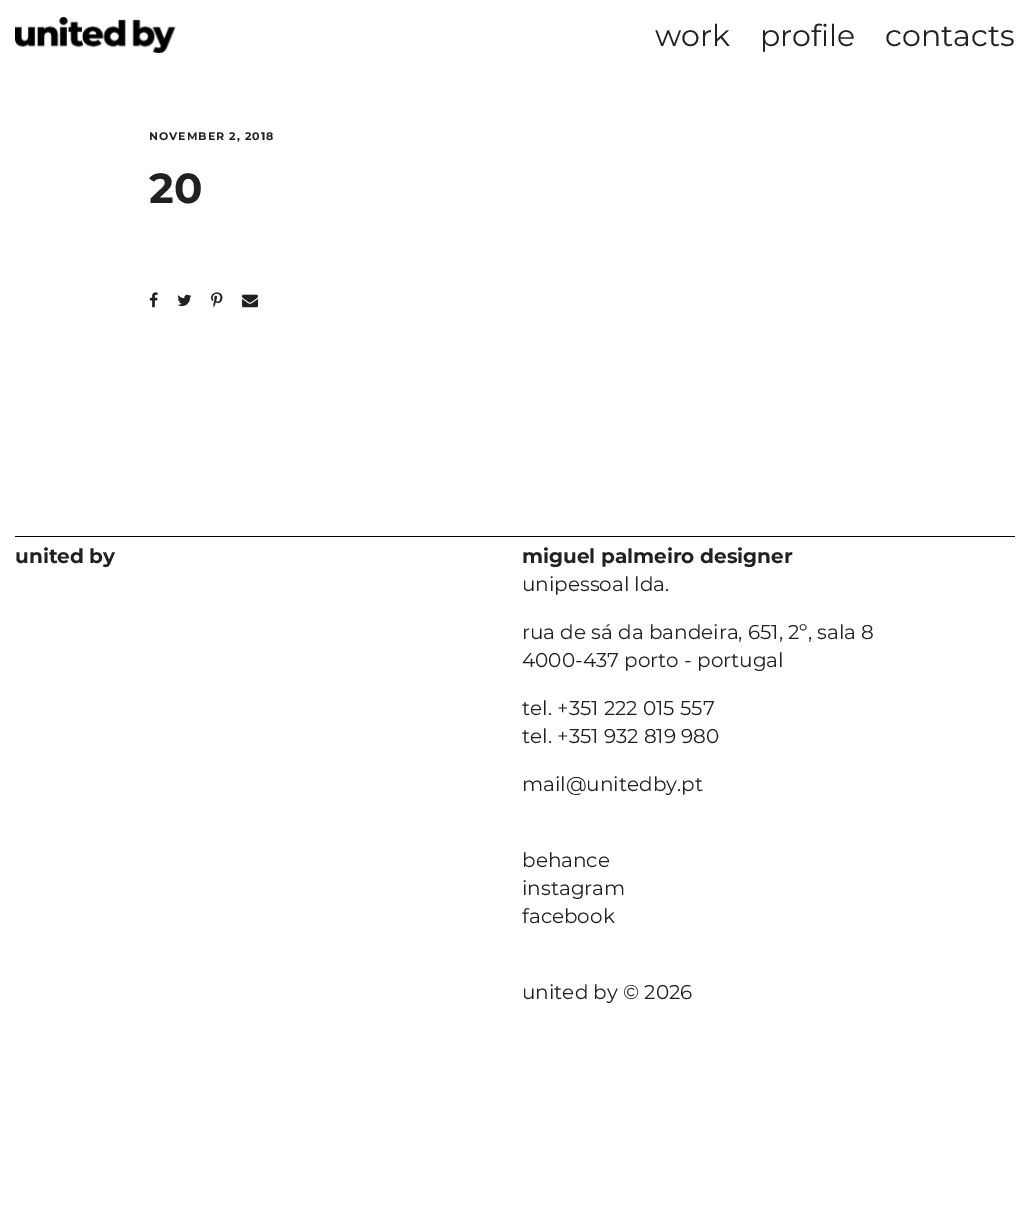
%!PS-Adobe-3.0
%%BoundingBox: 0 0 1030 1209
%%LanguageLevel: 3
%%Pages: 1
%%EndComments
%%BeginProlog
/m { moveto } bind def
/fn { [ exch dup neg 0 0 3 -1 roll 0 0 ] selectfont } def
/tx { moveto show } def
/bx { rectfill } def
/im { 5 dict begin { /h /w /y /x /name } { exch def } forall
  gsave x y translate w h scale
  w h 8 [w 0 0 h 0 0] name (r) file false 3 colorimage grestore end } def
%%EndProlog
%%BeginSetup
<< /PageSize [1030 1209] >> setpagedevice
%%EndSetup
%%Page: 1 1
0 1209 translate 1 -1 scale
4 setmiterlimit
1 setgray
0 0 1030 1209 bx
(image0.raw) 15 17 161 36 im
/Montserrat-Regular 30 fn
0.129 setgray
(work) 655 46 tx
(profile) 760 46 tx
(contacts) 885 46 tx
/Montserrat-Bold 11 fn
149 140 m 1 0 (NOVEMBER 2, 2018) ashow
/Montserrat-Bold 42 fn
(20) 149 203 tx
(image1.raw) 149 292 9 16 im
(image2.raw) 177 294 15 13 im
(image3.raw) 211 292 12 16 im
(image4.raw) 242 294 16 14 im
0 setgray
15 536 1000 1 bx
/Montserrat-Bold 20 fn
0.129 setgray
(united by) 15 563 tx
(miguel palmeiro designer) 522 563 tx
/Montserrat-Regular 20 fn
(unipessoal lda.) 522 591 tx
(rua de sá da bandeira, 651, 2º, sala 8) 522 639 tx
(4000-437 porto - portugal) 522 667 tx
(tel. +351 222 015 557) 522 715 tx
(tel. +351 932 819 980) 522 743 tx
(mail@unitedby.pt) 522 791 tx
(behance) 522 867 tx
(instagram) 522 895 tx
(facebook) 522 923 tx
(united by © 2026) 522 999 tx
showpage
%%EOF
